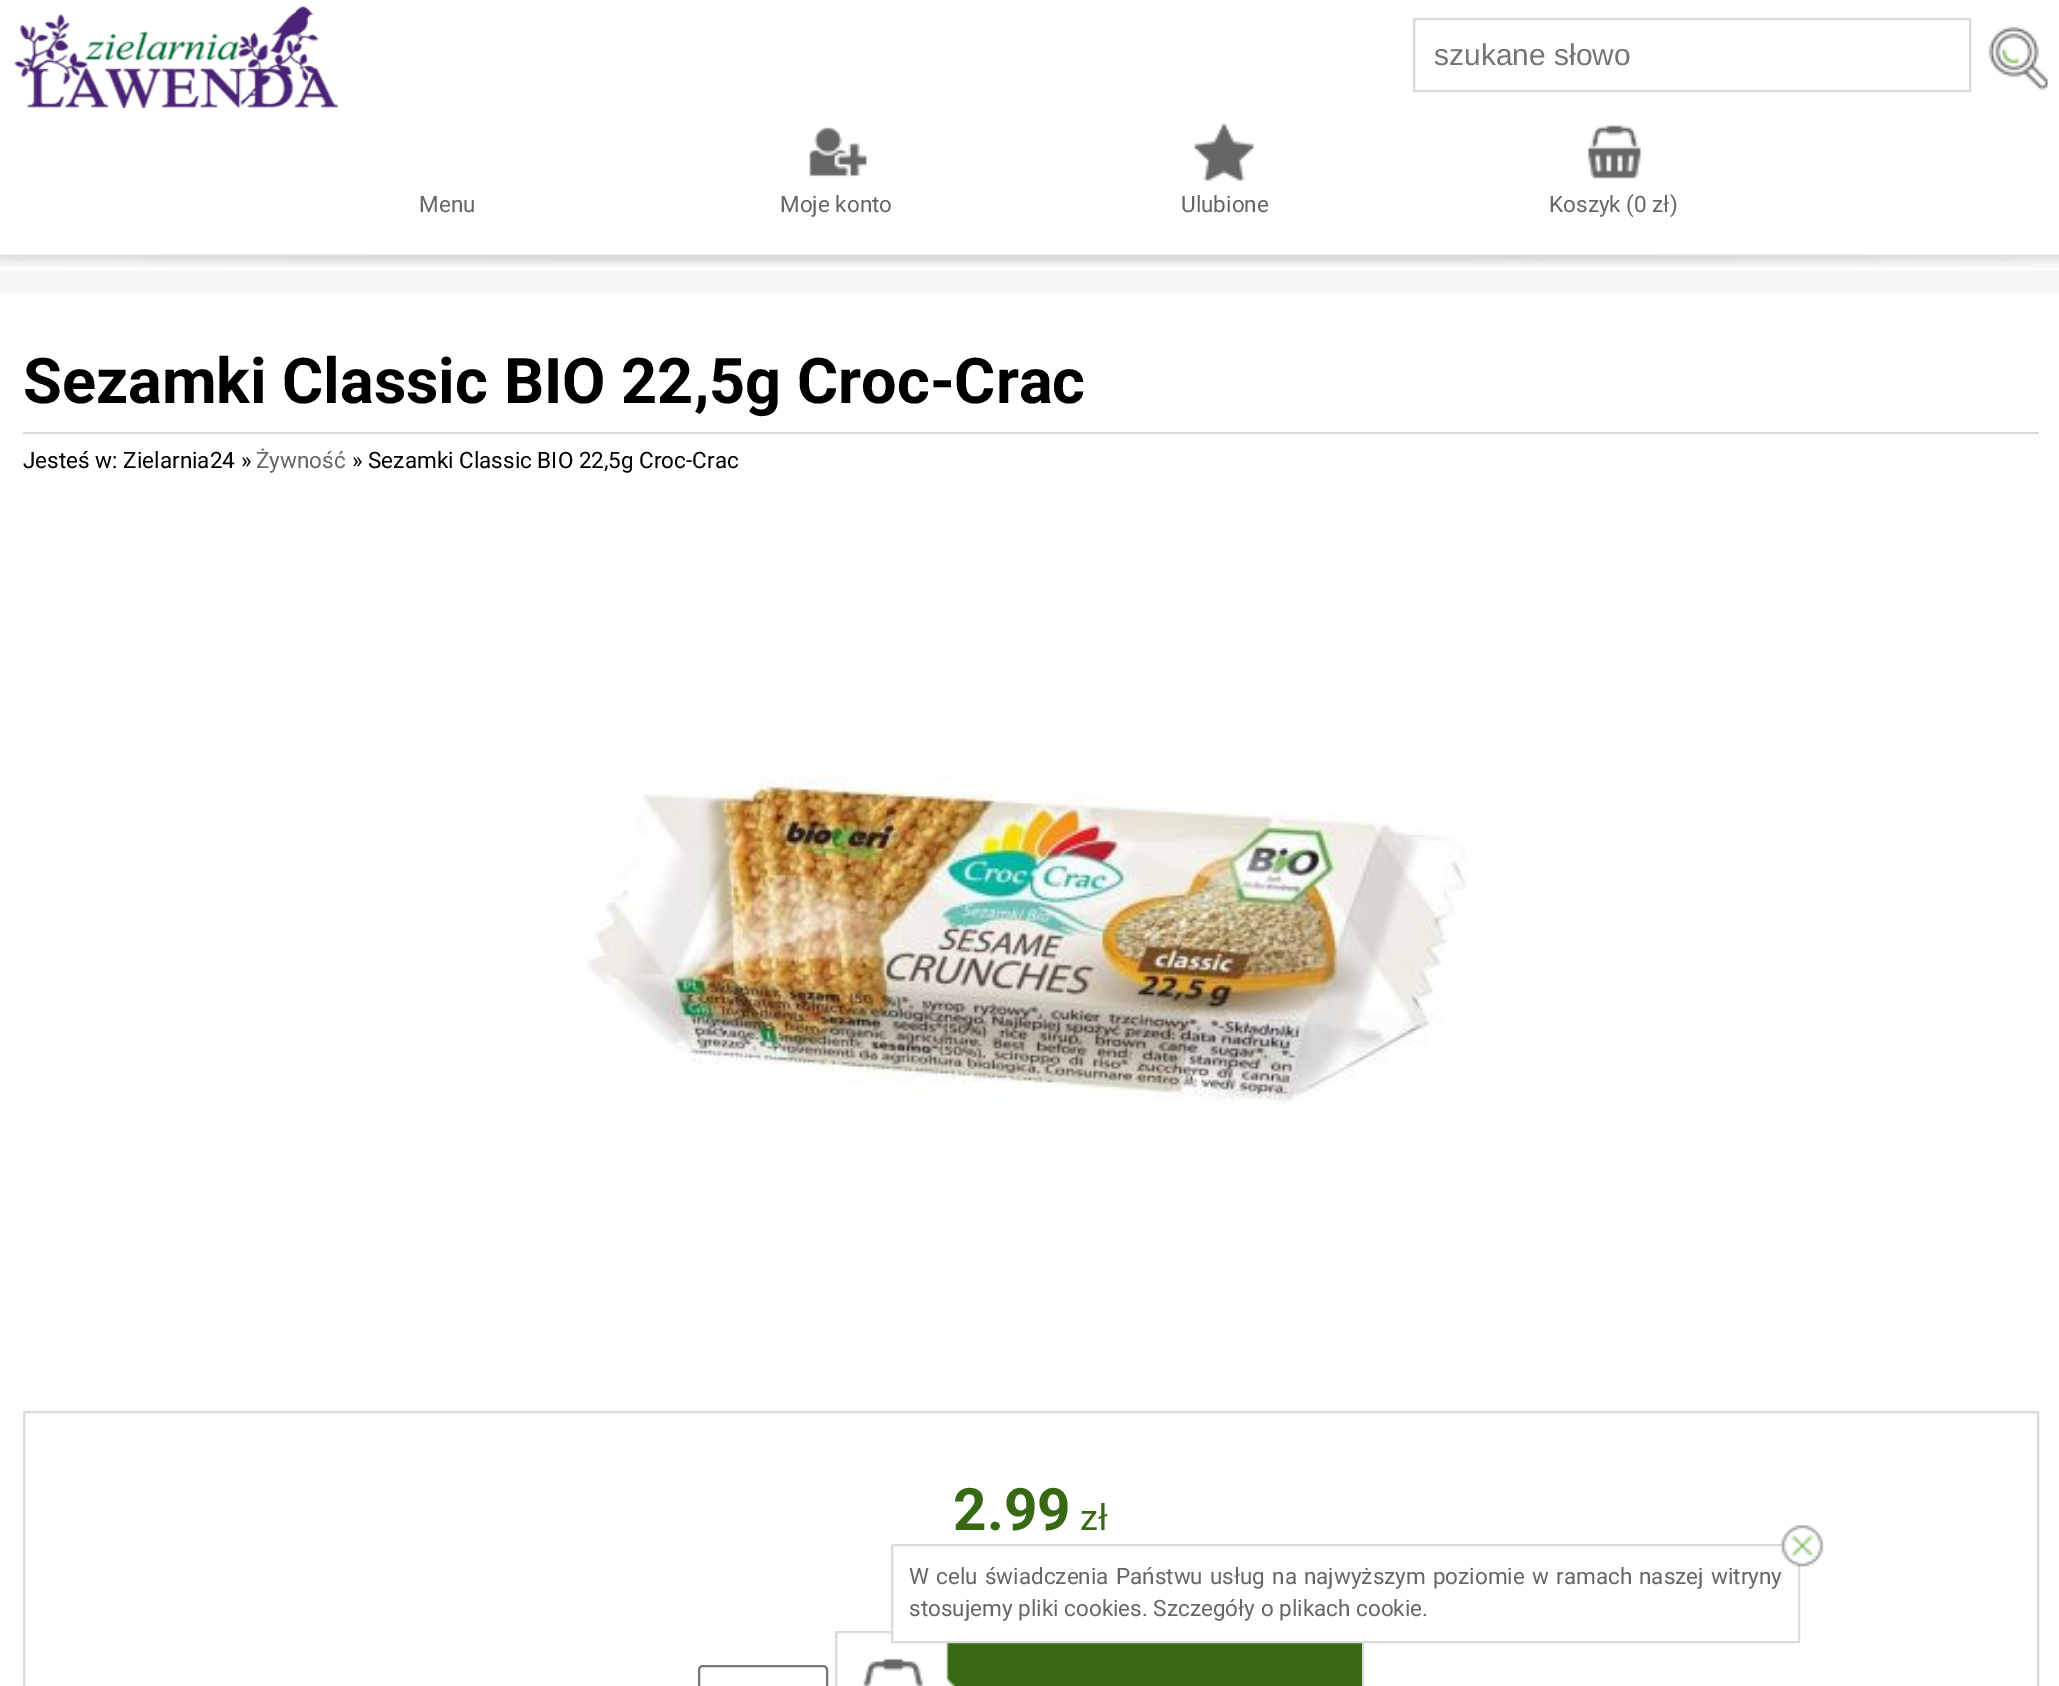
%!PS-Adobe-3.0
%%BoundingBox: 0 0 2059 1686
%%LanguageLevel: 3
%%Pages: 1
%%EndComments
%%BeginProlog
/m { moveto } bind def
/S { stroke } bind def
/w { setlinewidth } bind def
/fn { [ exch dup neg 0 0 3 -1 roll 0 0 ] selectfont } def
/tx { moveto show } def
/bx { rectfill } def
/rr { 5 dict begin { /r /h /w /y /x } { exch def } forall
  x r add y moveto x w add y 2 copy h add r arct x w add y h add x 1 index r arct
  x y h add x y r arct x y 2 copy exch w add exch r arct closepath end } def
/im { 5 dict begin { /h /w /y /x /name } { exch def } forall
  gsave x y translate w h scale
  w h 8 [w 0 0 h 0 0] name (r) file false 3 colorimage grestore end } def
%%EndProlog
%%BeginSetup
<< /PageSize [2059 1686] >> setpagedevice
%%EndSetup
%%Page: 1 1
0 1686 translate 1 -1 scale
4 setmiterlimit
0.969 setgray
0 0 2059 1686 bx
1 setgray
0 0 2059 270 bx
(image0.raw) 0 254 2059 14 im
(image1.raw) 14 6 324 102 im
0.859 setgray
2 w
1414 19 556 72 rectstroke
/LiberationSans-Regular 30 fn
0.459 setgray
(szukane słowo) 1434 65 tx
(image2.raw) 1988 26 60 65 im
/Roboto-Regular 22.5 fn
0.4 setgray
(Menu) 419 212 tx
(image3.raw) 809 127 58 50 im
(Moje konto) 780 212 tx
(image4.raw) 1194 123 60 58 im
(Ulubione) 1181 212 tx
(image5.raw) 1588 125 53 54 im
(Koszyk \(0 zł\)) 1549 212 tx
1 setgray
0 293 2059 1393 bx
0.859 setgray
23 432 2016 2 bx
/Roboto-Bold 63 fn
0 setgray
(Sezamki Classic BIO 22,5g Croc-Crac) 23 403 tx
/Roboto-Regular 22.5 fn
(Jesteś w: Zielarnia24 ») 23 468 tx
0.4 setgray
(Żywność) 256 468 tx
0 setgray
(» Sezamki Classic BIO 22,5g Croc-Crac) 352 468 tx
(image6.raw) 586 776 881 328 im
0.859 setgray
24 1412 2014 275 rectstroke
/Roboto-Bold 58.5 fn
0.216 0.412 0.078 setrgbcolor
(2.99) 953 1530 tx
/Roboto-Regular 36 fn
(zł) 1080 1530 tx
0.463 setgray
699 1666 128 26 4 rr S
0.216 0.412 0.078 setrgbcolor
956 1643 406 43 bx
(image7.raw) 837 1633 119 53 im
0.859 setgray
836 1632 527 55 rectstroke
1 setgray
893 1631 471 10 bx
0.859 setgray
892 1545 907 97 rectstroke
(image8.raw) 1781 1525 43 42 im
/Roboto-Regular 22.5 fn
0.4 setgray
909 1584 m 1.5 0 32 (W celu świadczenia Państwu usług na najwyższym poziomie w ramach naszej witryny) widthshow
(stosujemy pliki cookies. Szczegóły o plikach cookie.) 909 1616 tx
showpage
%%EOF
